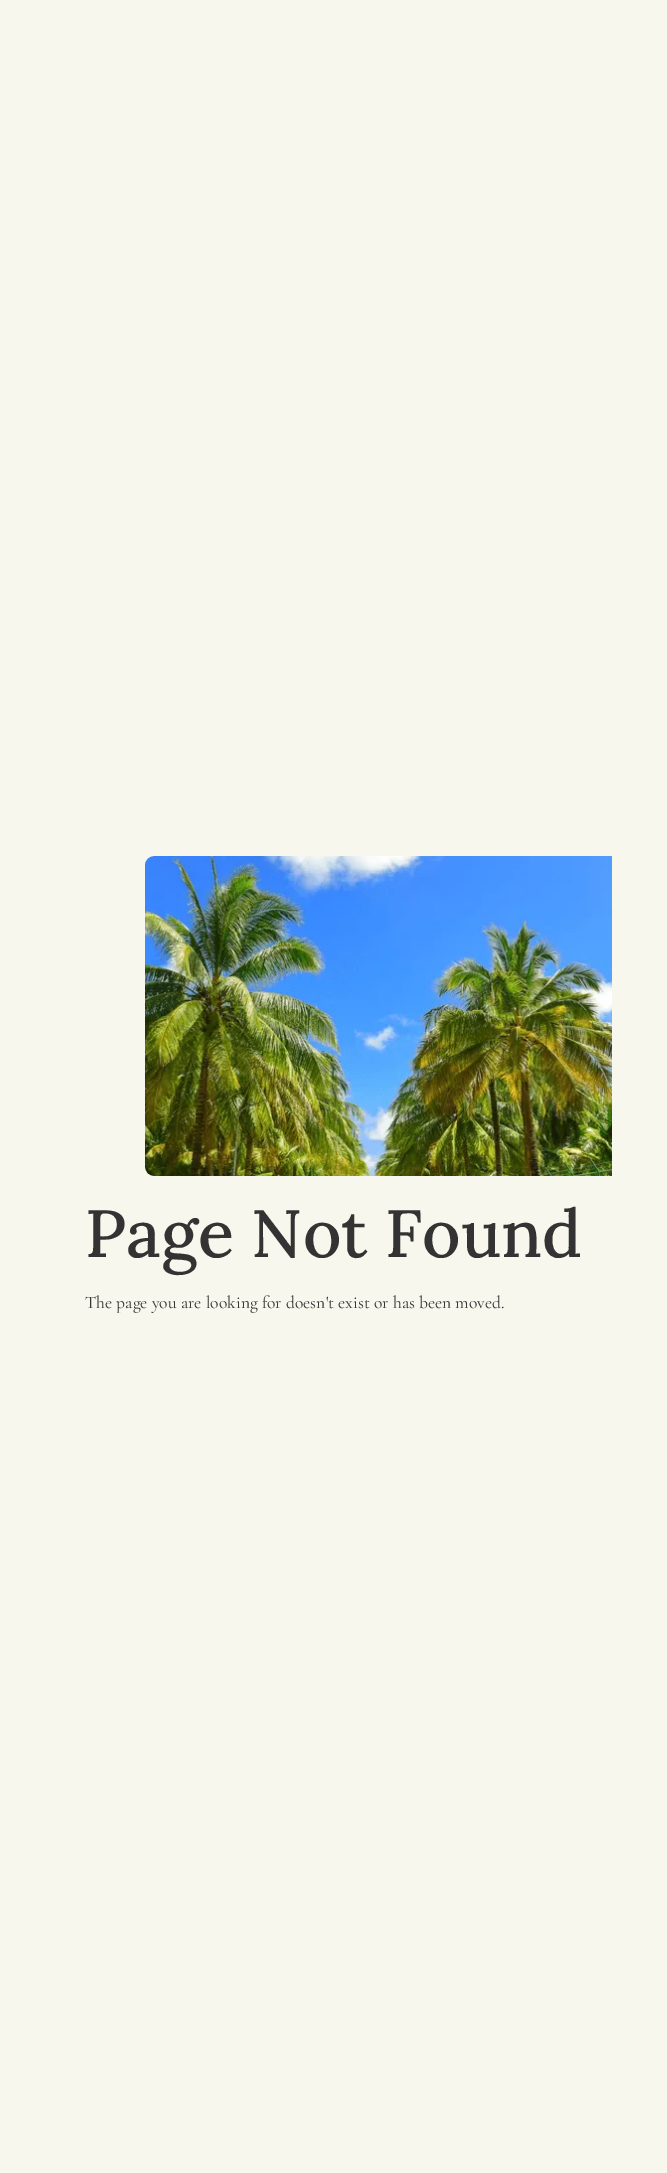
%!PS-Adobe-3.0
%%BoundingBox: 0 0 667 2173
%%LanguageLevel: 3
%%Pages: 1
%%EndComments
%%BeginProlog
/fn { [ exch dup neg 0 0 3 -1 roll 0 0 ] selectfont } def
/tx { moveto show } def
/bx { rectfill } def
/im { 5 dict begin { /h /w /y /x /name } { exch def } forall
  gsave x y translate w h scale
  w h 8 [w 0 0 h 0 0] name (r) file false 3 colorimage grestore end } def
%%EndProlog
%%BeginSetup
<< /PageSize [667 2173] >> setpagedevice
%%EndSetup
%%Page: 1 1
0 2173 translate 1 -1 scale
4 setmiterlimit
0.969 0.969 0.929 setrgbcolor
0 0 667 2173 bx
(image0.raw) 145 856 467 320 im
/Lora-Medium 66.75 fn
0.2 setgray
(Page Not Found) 85 1257 tx
/CormorantGaramond-Regular 17.6 fn
(The page you are looking for doesn't exist or has been moved.) 85 1308 tx
showpage
%%EOF
